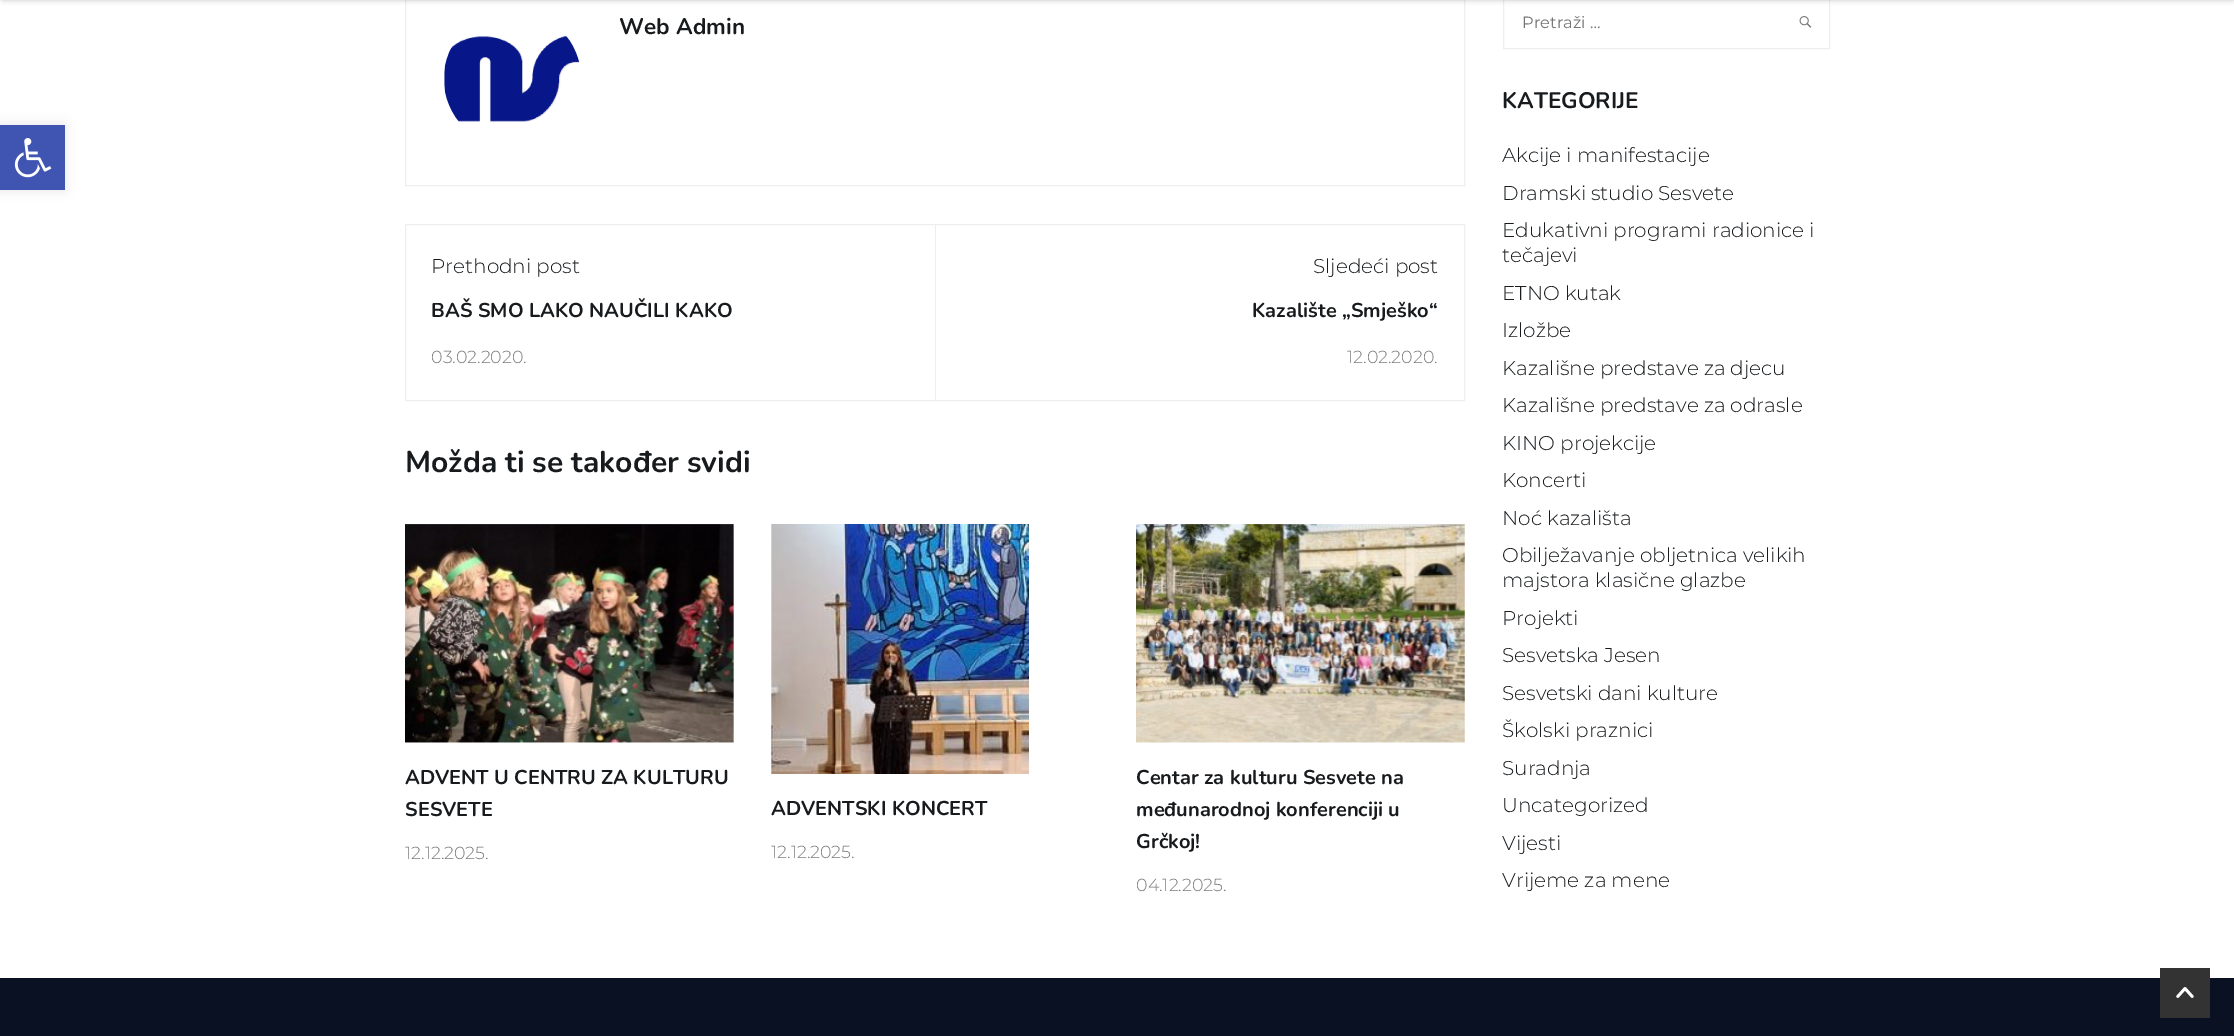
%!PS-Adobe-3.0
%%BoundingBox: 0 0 2234 1036
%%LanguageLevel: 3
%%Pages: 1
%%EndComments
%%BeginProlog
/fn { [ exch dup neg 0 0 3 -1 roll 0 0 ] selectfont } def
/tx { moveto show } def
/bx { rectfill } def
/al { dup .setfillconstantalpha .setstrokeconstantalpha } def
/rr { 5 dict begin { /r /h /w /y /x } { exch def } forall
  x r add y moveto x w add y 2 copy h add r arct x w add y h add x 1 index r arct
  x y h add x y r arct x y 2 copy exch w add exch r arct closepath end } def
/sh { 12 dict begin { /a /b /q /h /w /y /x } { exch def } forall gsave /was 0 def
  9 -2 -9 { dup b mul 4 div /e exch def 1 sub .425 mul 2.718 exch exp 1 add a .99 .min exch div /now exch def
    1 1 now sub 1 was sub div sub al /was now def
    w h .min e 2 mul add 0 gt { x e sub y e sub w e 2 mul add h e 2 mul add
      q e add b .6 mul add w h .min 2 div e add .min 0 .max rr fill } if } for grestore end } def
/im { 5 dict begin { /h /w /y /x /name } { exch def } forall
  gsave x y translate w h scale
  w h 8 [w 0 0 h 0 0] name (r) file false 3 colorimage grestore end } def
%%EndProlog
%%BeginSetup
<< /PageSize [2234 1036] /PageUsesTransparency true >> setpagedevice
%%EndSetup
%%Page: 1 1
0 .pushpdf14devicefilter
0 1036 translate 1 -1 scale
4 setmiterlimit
1 setgray
0 0 2234 1036 bx
0 setgray
0 125 65 65 0 6 0.1 sh
0.251 0.329 0.698 setrgbcolor
0 125 65 65 bx
(image0.raw) 14 138 38 40 im
0.933 setgray
405.5 -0.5 1059 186 rectstroke
1503.5 -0.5 326 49 rectstroke
0.165 setgray
3 -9 2230 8 0 3 0.4 sh
/Nunito-Bold 22.5 fn
0.094 0.106 0.114 setrgbcolor
(Web Admin) 619 34 tx
(image1.raw) 444 35 136 87 im
0.933 setgray
405.5 224.5 1059 176 rectstroke
/Montserrat-Light 20 fn
0.094 0.106 0.114 setrgbcolor
(Prethodni post) 431 273 tx
/Nunito-Bold 20 fn
(BAŠ SMO LAKO NAUČILI KAKO) 431 317 tx
/Montserrat-Light 17.5 fn
0.482 setgray
(03.02.2020.) 431 363 tx
0.933 setgray
935 225 1 175 bx
/Montserrat-Light 20 fn
0.094 0.106 0.114 setrgbcolor
(Sljedeći post) 1313 273 tx
/Nunito-Bold 20 fn
(Kazalište „Smješko“) 1252 317 tx
/Montserrat-Light 17.5 fn
0.482 setgray
(12.02.2020.) 1347 363 tx
/Nunito-Bold 30 fn
0.094 0.106 0.114 setrgbcolor
(Možda ti se također svidi) 405 472 tx
(image2.raw) 405 524 329 219 im
/Nunito-Bold 20 fn
(ADVENT U CENTRU ZA KULTURU) 405 784 tx
(SESVETE) 405 816 tx
/Montserrat-Light 17.5 fn
0.482 setgray
(12.12.2025.) 405 859 tx
(image3.raw) 771 524 258 250 im
/Nunito-Bold 20 fn
0.094 0.106 0.114 setrgbcolor
(ADVENTSKI KONCERT) 771 815 tx
/Montserrat-Light 17.5 fn
0.482 setgray
(12.12.2025.) 771 858 tx
(image4.raw) 1136 524 329 219 im
/Nunito-Bold 20 fn
0.094 0.106 0.114 setrgbcolor
(Centar za kulturu Sesvete na) 1136 784 tx
(međunarodnoj konferenciji u) 1136 816 tx
(Grčkoj!) 1136 848 tx
/Montserrat-Light 17.5 fn
0.482 setgray
(04.12.2025.) 1136 891 tx
/Montserrat-Regular 16.25 fn
0.459 setgray
(Pretraži …) 1522 28 tx
(image5.raw) 1799 16 13 12 im
/Nunito-Bold 22.5 fn
0.094 0.106 0.114 setrgbcolor
(KATEGORIJE) 1502 108 tx
/Montserrat-Light 20 fn
(Akcije i manifestacije) 1502 162 tx
(Dramski studio Sesvete) 1502 200 tx
(Edukativni programi radionice i) 1502 237 tx
(tečajevi) 1502 262 tx
(ETNO kutak) 1502 300 tx
(Izložbe) 1502 337 tx
(Kazališne predstave za djecu) 1502 375 tx
(Kazališne predstave za odrasle) 1502 412 tx
(KINO projekcije) 1502 450 tx
(Koncerti) 1502 487 tx
(Noć kazališta) 1502 525 tx
(Obilježavanje obljetnica velikih) 1502 562 tx
(majstora klasične glazbe) 1502 587 tx
(Projekti) 1502 625 tx
(Sesvetska Jesen) 1502 662 tx
(Sesvetski dani kulture) 1502 700 tx
(Školski praznici) 1502 737 tx
(Suradnja) 1502 775 tx
(Uncategorized) 1502 812 tx
(Vijesti) 1502 850 tx
(Vrijeme za mene) 1502 887 tx
0.035 0.067 0.137 setrgbcolor
0 978 2234 58 bx
0.2 setgray
2160 968 50 50 bx
(image6.raw) 2176 987 18 11 im
.poppdf14devicefilter showpage
%%EOF
